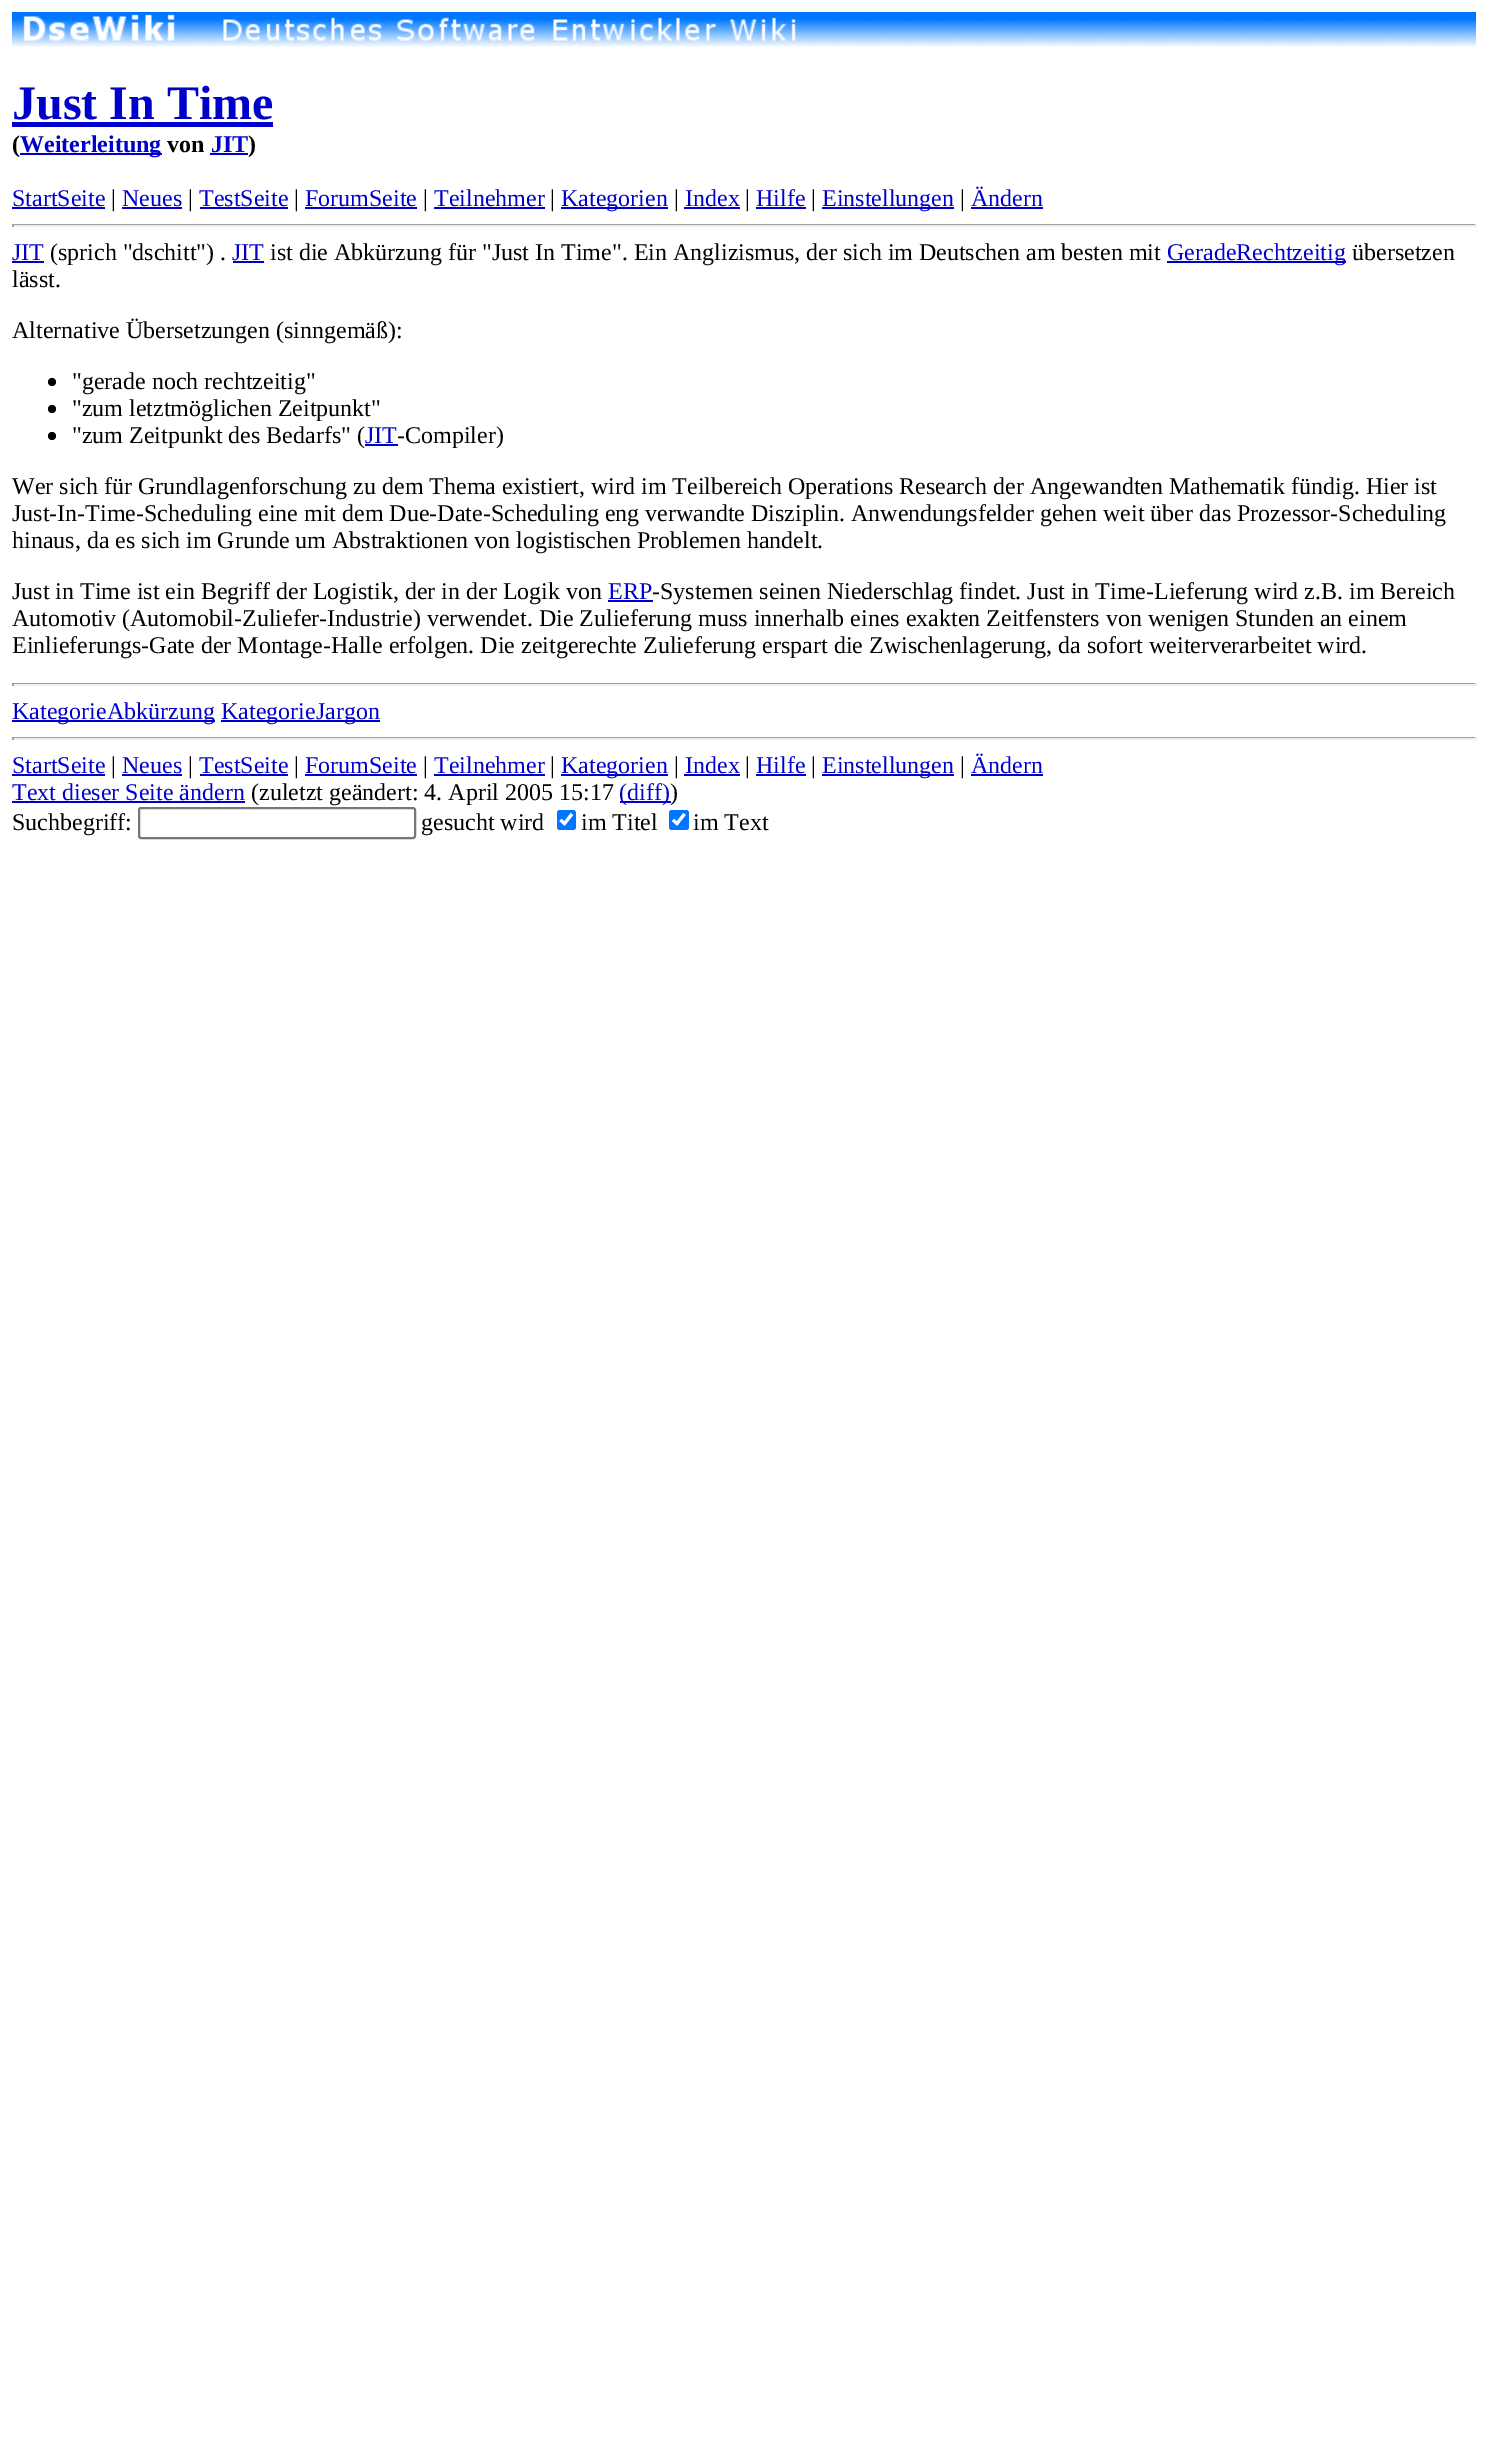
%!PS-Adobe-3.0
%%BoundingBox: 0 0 1488 2444
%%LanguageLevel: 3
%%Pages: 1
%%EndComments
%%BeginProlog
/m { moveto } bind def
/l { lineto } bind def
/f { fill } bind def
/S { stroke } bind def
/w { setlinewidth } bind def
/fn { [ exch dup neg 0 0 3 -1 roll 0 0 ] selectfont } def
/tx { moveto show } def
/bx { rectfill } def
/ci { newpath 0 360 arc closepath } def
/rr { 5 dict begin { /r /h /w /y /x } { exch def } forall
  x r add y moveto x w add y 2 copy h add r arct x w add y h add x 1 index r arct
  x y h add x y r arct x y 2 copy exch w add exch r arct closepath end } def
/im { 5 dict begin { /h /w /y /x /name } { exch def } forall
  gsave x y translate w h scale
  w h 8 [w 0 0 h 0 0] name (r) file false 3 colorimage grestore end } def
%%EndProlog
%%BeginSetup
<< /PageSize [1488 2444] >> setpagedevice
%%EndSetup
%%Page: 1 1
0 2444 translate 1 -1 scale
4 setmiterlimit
1 setgray
0 0 1488 2444 bx
(image0.raw) 12 12 1464 35 im
/LiberationSerif-Bold 48 fn
0 0 0.8 setrgbcolor
(Just In Time) 12 119 tx
12 122 261 5 bx
/LiberationSerif-Bold 24 fn
0 setgray
(\() 12 152 tx
0 0 0.8 setrgbcolor
20 153 142 2 bx
(Weiterleitung) 20 152 tx
0 setgray
(von) 167 152 tx
0 0 0.8 setrgbcolor
(JIT) 211 152 tx
0 setgray
(\)) 248 152 tx
0 0 0.8 setrgbcolor
210 153 38 2 bx
/LiberationSerif-Regular 24 fn
(StartSeite) 12 206 tx
12 207 93 2 bx
0 setgray
(|) 111 206 tx
0 0 0.8 setrgbcolor
(Neues) 122 206 tx
122 207 60 2 bx
0 setgray
(|) 188 206 tx
0 0 0.8 setrgbcolor
(TestSeite) 199 206 tx
200 207 88 2 bx
0 setgray
(|) 294 206 tx
0 0 0.8 setrgbcolor
(ForumSeite) 305 206 tx
305 207 112 2 bx
0 setgray
(|) 423 206 tx
0 0 0.8 setrgbcolor
(Teilnehmer) 434 206 tx
434 207 111 2 bx
0 setgray
(|) 550 206 tx
0 0 0.8 setrgbcolor
561 207 107 2 bx
(Kategorien) 561 206 tx
0 setgray
(|) 674 206 tx
0 0 0.8 setrgbcolor
(Index) 685 206 tx
684 207 56 2 bx
0 setgray
(|) 745 206 tx
0 0 0.8 setrgbcolor
(Hilfe) 756 206 tx
756 207 50 2 bx
0 setgray
(|) 811 206 tx
0 0 0.8 setrgbcolor
822 207 132 2 bx
(Einstellungen) 822 206 tx
0 setgray
(|) 960 206 tx
0 0 0.8 setrgbcolor
(Ändern) 971 206 tx
971 207 72 2 bx
0.624 setgray
12 224 1464 1 bx
0.933 setgray
1475 224 2 3 bx
12 225 1464 2 bx
0.624 setgray
12 224 2 3 bx
0 0 0.8 setrgbcolor
(JIT) 12 260 tx
12 261 32 2 bx
0 setgray
(\(sprich "dschitt"\) .) 50 260 tx
0 0 0.8 setrgbcolor
(JIT) 232 260 tx
233 261 31 2 bx
0 setgray
(ist die Abkürzung für "Just In Time". Ein Anglizismus, der sich im Deutschen am besten mit) 270 260 tx
0 0 0.8 setrgbcolor
1167 261 179 2 bx
(GeradeRechtzeitig) 1167 260 tx
0 setgray
(übersetzen) 1352 260 tx
(lässt.) 12 287 tx
(Alternative Übersetzungen \(sinngemäß\):) 12 338 tx
52 382 4 ci f
("gerade noch rechtzeitig") 72 389 tx
52 409 4 ci f
("zum letztmöglichen Zeitpunkt") 72 416 tx
52 436 4 ci f
("zum Zeitpunkt des Bedarfs" \() 72 443 tx
0 0 0.8 setrgbcolor
(JIT) 365 443 tx
365 444 33 2 bx
0 setgray
(-Compiler\)) 397 443 tx
(Wer sich für Grundlagenforschung zu dem Thema existiert, wird im Teilbereich Operations Research der Angewandten Mathematik fündig. Hier ist) 12 494 tx
(Just-In-Time-Scheduling eine mit dem Due-Date-Scheduling eng verwandte Disziplin. Anwendungsfelder gehen weit über das Prozessor-Scheduling) 12 521 tx
(hinaus, da es sich im Grunde um Abstraktionen von logistischen Problemen handelt.) 12 548 tx
(Just in Time ist ein Begriff der Logistik, der in der Logik von) 12 599 tx
0 0 0.8 setrgbcolor
(ERP) 608 599 tx
608 600 45 2 bx
0 setgray
(-Systemen seinen Niederschlag findet. Just in Time-Lieferung wird z.B. im Bereich) 652 599 tx
(Automotiv \(Automobil-Zuliefer-Industrie\) verwendet. Die Zulieferung muss innerhalb eines exakten Zeitfensters von wenigen Stunden an einem) 12 626 tx
(Einlieferungs-Gate der Montage-Halle erfolgen. Die zeitgerechte Zulieferung erspart die Zwischenlagerung, da sofort weiterverarbeitet wird.) 12 653 tx
0.624 setgray
12 683 1464 1 bx
0.933 setgray
1475 683 2 3 bx
12 684 1464 2 bx
0.624 setgray
12 683 2 3 bx
0 0 0.8 setrgbcolor
12 720 203 2 bx
(KategorieAbkürzung) 12 719 tx
221 720 159 2 bx
(KategorieJargon) 221 719 tx
0.624 setgray
12 737 1464 1 bx
0.933 setgray
1475 737 2 3 bx
12 738 1464 2 bx
0.624 setgray
12 737 2 3 bx
0 0 0.8 setrgbcolor
(StartSeite) 12 773 tx
12 774 93 2 bx
0 setgray
(|) 111 773 tx
0 0 0.8 setrgbcolor
(Neues) 122 773 tx
122 774 60 2 bx
0 setgray
(|) 188 773 tx
0 0 0.8 setrgbcolor
(TestSeite) 199 773 tx
200 774 88 2 bx
0 setgray
(|) 294 773 tx
0 0 0.8 setrgbcolor
(ForumSeite) 305 773 tx
305 774 112 2 bx
0 setgray
(|) 423 773 tx
0 0 0.8 setrgbcolor
(Teilnehmer) 434 773 tx
434 774 111 2 bx
0 setgray
(|) 550 773 tx
0 0 0.8 setrgbcolor
561 774 107 2 bx
(Kategorien) 561 773 tx
0 setgray
(|) 674 773 tx
0 0 0.8 setrgbcolor
(Index) 685 773 tx
684 774 56 2 bx
0 setgray
(|) 745 773 tx
0 0 0.8 setrgbcolor
(Hilfe) 756 773 tx
756 774 50 2 bx
0 setgray
(|) 811 773 tx
0 0 0.8 setrgbcolor
822 774 132 2 bx
(Einstellungen) 822 773 tx
0 setgray
(|) 960 773 tx
0 0 0.8 setrgbcolor
(Ändern) 971 773 tx
971 774 72 2 bx
(Text dieser Seite ändern) 12 800 tx
12 801 233 2 bx
0 setgray
(\(zuletzt geändert: 4. April 2005 15:17) 251 800 tx
0 0 0.8 setrgbcolor
620 801 51 2 bx
(\(diff\)) 619 800 tx
0 setgray
(\)) 670 800 tx
(Suchbegriff:) 12 830 tx
0.463 setgray
2 w
139 808 276 30 2 rr S
0 setgray
(gesucht wird) 421 830 tx
0 0.459 1 setrgbcolor
557 810 19 20 3 rr f
1 setgray
3.1 w
560.5 820 m 564.5 823.5 l 572 814 l S
0 setgray
(im Titel) 581 830 tx
0 0.459 1 setrgbcolor
669 810 20 20 3 rr f
1 setgray
673 820 m 677 823.5 l 684.5 814 l S
0 setgray
(im Text) 693 830 tx
showpage
%%EOF
